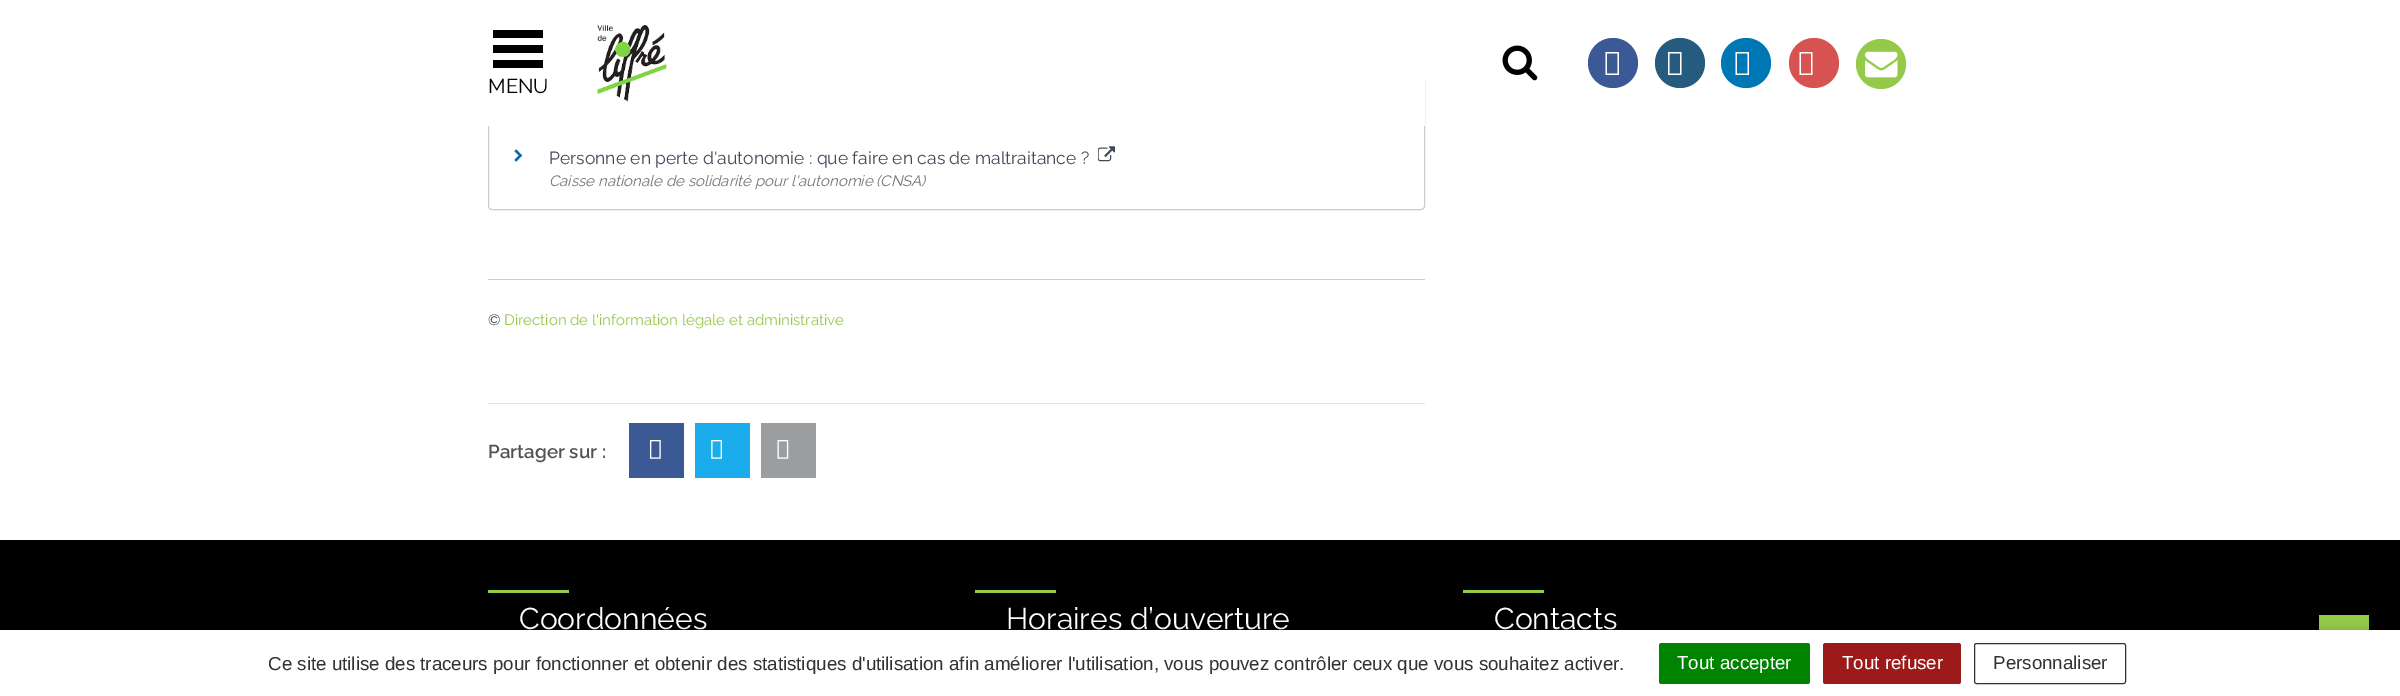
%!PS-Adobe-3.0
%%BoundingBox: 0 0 2400 696
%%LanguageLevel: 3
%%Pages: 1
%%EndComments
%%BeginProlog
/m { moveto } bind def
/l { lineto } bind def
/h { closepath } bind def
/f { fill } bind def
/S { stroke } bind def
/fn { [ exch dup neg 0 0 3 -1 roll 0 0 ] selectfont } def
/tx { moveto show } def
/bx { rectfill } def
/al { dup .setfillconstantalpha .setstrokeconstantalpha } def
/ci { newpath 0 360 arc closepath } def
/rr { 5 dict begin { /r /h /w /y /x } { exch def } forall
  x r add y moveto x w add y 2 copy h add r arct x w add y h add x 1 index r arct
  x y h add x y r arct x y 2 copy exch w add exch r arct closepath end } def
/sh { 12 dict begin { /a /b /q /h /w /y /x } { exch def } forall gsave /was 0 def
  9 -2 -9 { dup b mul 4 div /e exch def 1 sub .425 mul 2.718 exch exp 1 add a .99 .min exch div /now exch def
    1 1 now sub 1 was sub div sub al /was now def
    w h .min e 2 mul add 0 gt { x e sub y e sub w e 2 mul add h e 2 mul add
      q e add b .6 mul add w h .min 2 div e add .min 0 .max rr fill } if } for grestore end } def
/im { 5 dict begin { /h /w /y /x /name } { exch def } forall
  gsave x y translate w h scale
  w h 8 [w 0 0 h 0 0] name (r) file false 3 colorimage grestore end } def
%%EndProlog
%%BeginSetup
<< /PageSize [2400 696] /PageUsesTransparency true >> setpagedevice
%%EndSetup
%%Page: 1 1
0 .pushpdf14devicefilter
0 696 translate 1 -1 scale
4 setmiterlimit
1 setgray
0 0 2400 696 bx
0.8 setgray
488.5 76.5 936 133 3.5 rr S
1 setgray
488 76 937 50 bx
(image0.raw) 597 25 70 77 im
(image1.raw) 1502 45 36 36 im
0.231 0.349 0.584 setrgbcolor
1613 63 25 ci f
1 setgray
1605.5 75 m 1605.5 52 l 1619 52 l 1619 75 l h 1607 73.5 m 1617.5 73.5 l 1617.5 53.5 l 1607 53.5 l h f
0.149 0.357 0.502 setrgbcolor
1680 63 25 ci f
1 setgray
1668 75 m 1668 52 l 1681.5 52 l 1681.5 75 l h 1669.5 73.5 m 1680 73.5 l 1680 53.5 l 1669.5 53.5 l h f
0 0.467 0.71 setrgbcolor
1746 63 25 ci f
1 setgray
1735.5 75 m 1735.5 52 l 1749 52 l 1749 75 l h 1737 73.5 m 1747.5 73.5 l 1747.5 53.5 l 1737 53.5 l h f
0.843 0.325 0.318 setrgbcolor
1814 63 25 ci f
1 setgray
1799.5 75 m 1799.5 52 l 1812.5 52 l 1812.5 75 l h 1801 73.5 m 1811 73.5 l 1811 53.5 l 1801 53.5 l h f
0.584 0.788 0.29 setrgbcolor
1881 64 25 ci f
(image2.raw) 1865 51 33 27 im
0 setgray
493 30 50 8 bx
493 45 50 8 bx
493 60 50 8 bx
/Raleway-Regular 20 fn
(MENU) 488 93 tx
(image3.raw) 514 149 9 13 im
/Raleway-Regular 17.5 fn
0.255 0.282 0.337 setrgbcolor
(Personne en perte d'autonomie : que faire en cas de maltraitance ?) 549 164 tx
(image4.raw) 1098 146 17 16 im
/Raleway-Italic 15 fn
0.459 setgray
(Caisse nationale de solidarité pour l'autonomie \(CNSA\)) 549 186 tx
0.8 setgray
488 279 937 1 bx
/Raleway-Regular 15 fn
0.255 0.282 0.337 setrgbcolor
(©) 488 325 tx
0.584 0.788 0.29 setrgbcolor
(Direction de l'information légale et administrative) 504 325 tx
0.886 setgray
488 403 937 1 bx
/Raleway-SemiBold 18.75 fn
0.322 setgray
(Partager sur :) 488 458 tx
0.231 0.349 0.584 setrgbcolor
629 423 55 55 bx
(image5.raw) 649 440 12 19 im
0.106 0.678 0.922 setrgbcolor
695 423 55 55 bx
(image6.raw) 711 440 11 19 im
0.612 0.616 0.62 setrgbcolor
761 423 55 55 bx
(image7.raw) 777 440 12 19 im
0 setgray
0 540 2400 90 bx
0.584 0.788 0.29 setrgbcolor
488 590 81 3 bx
/Raleway-Regular 30 fn
1 setgray
(Coordonnées) 519 629 tx
0.584 0.788 0.29 setrgbcolor
975 590 81 3 bx
1 setgray
(Horaires d’ouverture) 1006 629 tx
0.584 0.788 0.29 setrgbcolor
1463 590 81 3 bx
1 setgray
(Contacts) 1494 629 tx
0.584 0.788 0.29 setrgbcolor
2319 615 50 15 bx
0 setgray
0 636 2400 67 0 6 0.5 sh
1 setgray
0 630 2400 66 bx
/LiberationSans-Regular 18.75 fn
0.2 setgray
(Ce site utilise des traceurs pour fonctionner et obtenir des statistiques d'utilisation afin améliorer l'utilisation, vous pouvez contrôler ceux que vous souhaitez activer.) 268 670 tx
0 0.514 0 setrgbcolor
1659 643 151 41 2.5 rr f
1 setgray
(Tout accepter) 1677 669 tx
0.612 0.102 0.102 setrgbcolor
1823 643 138 41 2.5 rr f
1 setgray
(Tout refuser) 1842 669 tx
0.2 setgray
1974.5 643.5 151 40 2 rr S
(Personnaliser) 1993 669 tx
.poppdf14devicefilter showpage
%%EOF
